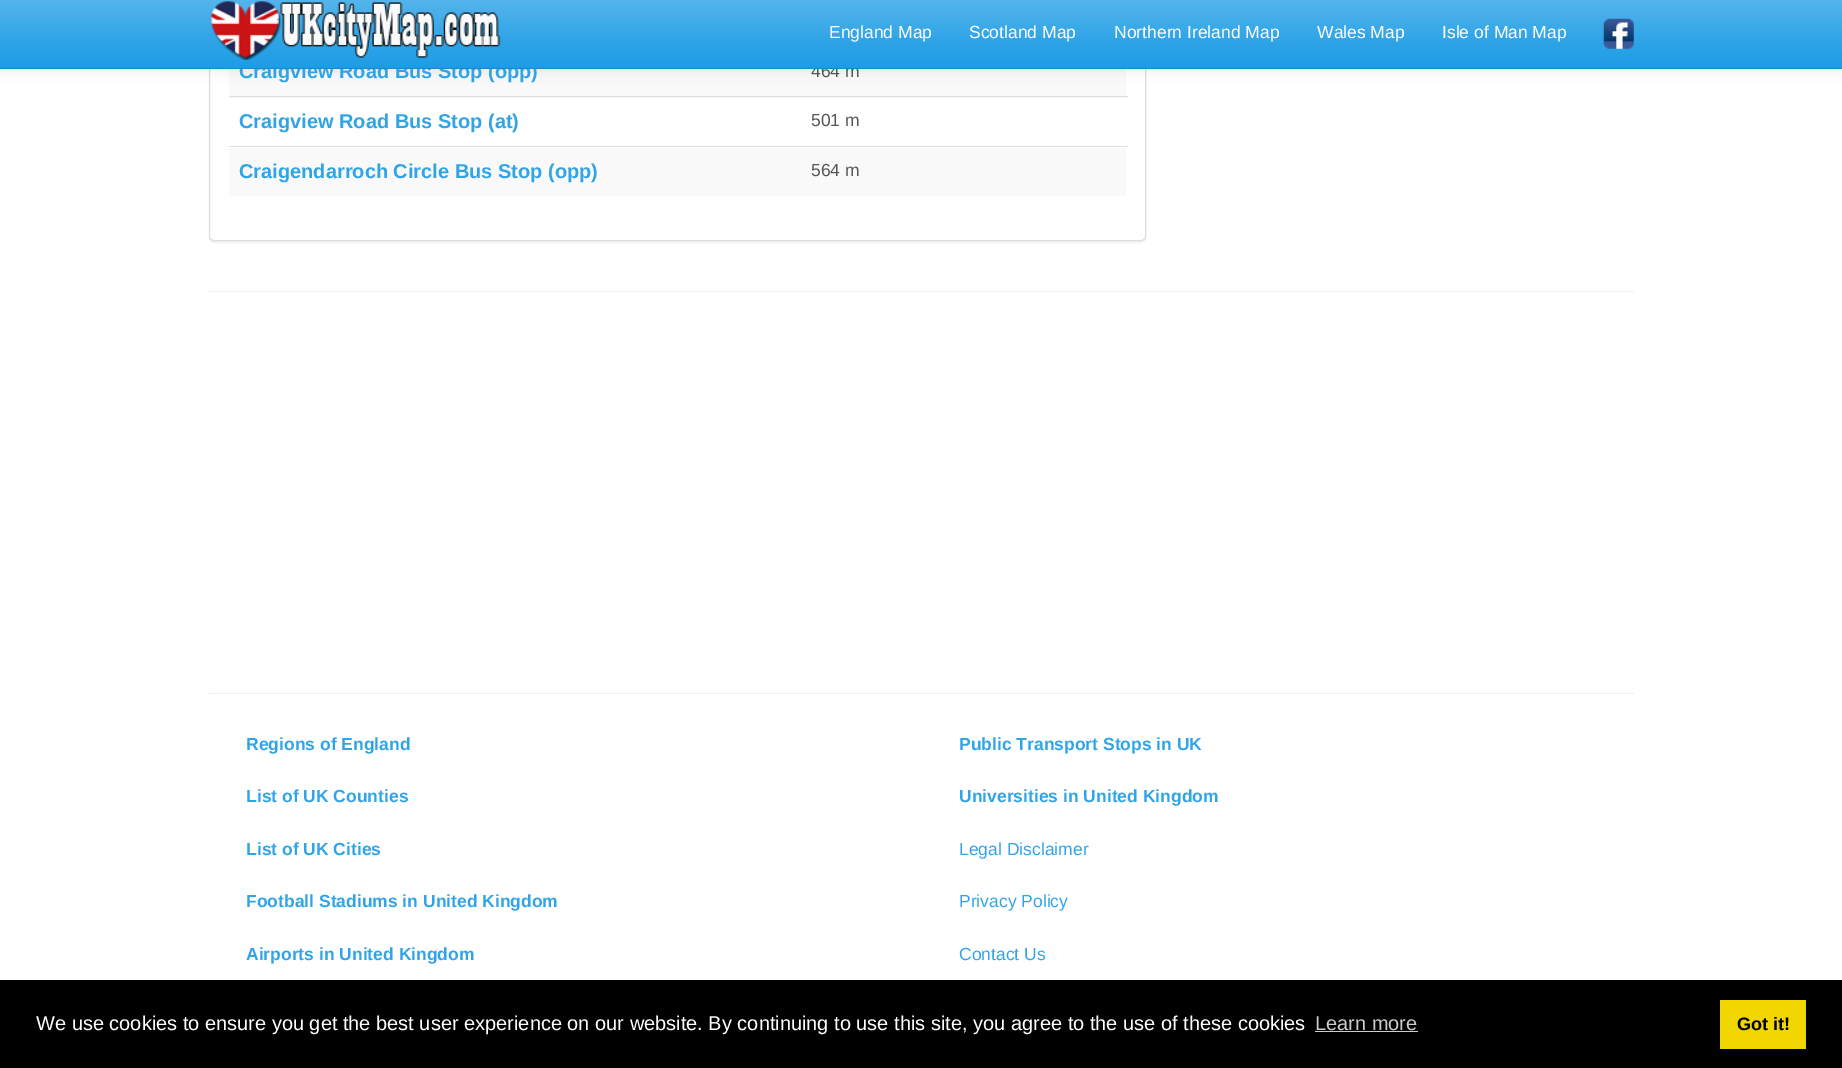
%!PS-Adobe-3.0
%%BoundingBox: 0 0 1842 1068
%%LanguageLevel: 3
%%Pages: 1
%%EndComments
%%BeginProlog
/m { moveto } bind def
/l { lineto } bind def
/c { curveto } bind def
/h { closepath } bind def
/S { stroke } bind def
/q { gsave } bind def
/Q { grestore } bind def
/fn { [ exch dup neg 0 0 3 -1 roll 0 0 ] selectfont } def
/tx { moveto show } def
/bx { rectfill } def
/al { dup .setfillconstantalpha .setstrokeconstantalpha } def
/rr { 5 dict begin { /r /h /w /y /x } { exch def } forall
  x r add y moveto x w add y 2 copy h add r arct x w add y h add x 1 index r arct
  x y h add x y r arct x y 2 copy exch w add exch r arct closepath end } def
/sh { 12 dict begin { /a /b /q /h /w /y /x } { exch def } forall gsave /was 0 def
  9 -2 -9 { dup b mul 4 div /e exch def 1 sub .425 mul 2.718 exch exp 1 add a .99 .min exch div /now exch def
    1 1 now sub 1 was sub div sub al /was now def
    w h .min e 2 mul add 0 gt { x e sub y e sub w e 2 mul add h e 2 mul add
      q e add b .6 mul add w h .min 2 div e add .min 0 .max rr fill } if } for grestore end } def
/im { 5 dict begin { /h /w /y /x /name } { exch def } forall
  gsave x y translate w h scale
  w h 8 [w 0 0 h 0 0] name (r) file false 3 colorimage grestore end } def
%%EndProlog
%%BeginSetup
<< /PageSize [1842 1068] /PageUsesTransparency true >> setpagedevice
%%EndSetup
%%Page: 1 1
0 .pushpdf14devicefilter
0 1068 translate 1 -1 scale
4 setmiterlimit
1 setgray
0 0 1842 1068 bx
q
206 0 m 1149 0 l 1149 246 l 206 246 l h 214 -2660 m 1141 -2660 l 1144 -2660 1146 -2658 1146 -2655 c 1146 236 l 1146 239 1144 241 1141 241 c 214 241 l 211 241 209 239 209 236 c 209 -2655 l 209 -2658 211 -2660 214 -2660 c h eoclip newpath
0 setgray
209 -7 937 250 5 0.5 0.05 sh
Q
0.867 setgray
209.5 -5.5 936 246 4.5 rr S
0.976 setgray
229 69 897 29 bx
0 setgray
0 1 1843 69 0 6 0.1 sh
/LiberationSans-Bold 20 fn
0.184 0.643 0.906 setrgbcolor
(Craigview Road Bus Stop \(opp\)) 239 78 tx
/LiberationSans-Regular 17.5 fn
0.333 setgray
(464 m) 811 77 tx
q 0 0 m 1842 0 l 1842 68 l 0 68 l h clip newpath
<< /ShadingType 2 /ColorSpace /DeviceRGB /Coords [921 0 921 68] /Extend [true true] /Function << /FunctionType 3 /Domain [0 1] /Functions [<< /FunctionType 2 /Domain [0 1] /C0 [0.329 0.706 0.922] /C1 [0.184 0.643 0.906] /N 1 >> << /FunctionType 2 /Domain [0 1] /C0 [0.184 0.643 0.906] /C1 [0.114 0.612 0.898] /N 1 >>] /Bounds [0.6] /Encode [0 1 0 1] >> >> shfill Q
0.09 0.541 0.8 setrgbcolor
0 68 1842 1 bx
(image0.raw) 211 1 290 59 im
1 setgray
(England Map) 829 38 tx
(Scotland Map) 969 38 tx
(Northern Ireland Map) 1114 38 tx
(Wales Map) 1317 38 tx
(Isle of Man Map) 1442 38 tx
(image1.raw) 1603 18 31 31 im
/LiberationSans-Bold 20 fn
0.184 0.643 0.906 setrgbcolor
(Craigview Road Bus Stop \(at\)) 239 128 tx
0.867 setgray
229 96 899 1 bx
/LiberationSans-Regular 17.5 fn
0.333 setgray
(501 m) 811 126 tx
0.976 setgray
229 148 897 48 bx
/LiberationSans-Bold 20 fn
0.184 0.643 0.906 setrgbcolor
(Craigendarroch Circle Bus Stop \(opp\)) 239 178 tx
0.867 setgray
229 146 899 1 bx
/LiberationSans-Regular 17.5 fn
0.333 setgray
(564 m) 811 176 tx
0.933 setgray
209 291 1425 1 bx
209 693 1425 1 bx
/LiberationSans-Bold 17.5 fn
0.184 0.643 0.906 setrgbcolor
(Regions of England) 246 750 tx
(List of UK Counties) 246 802 tx
(List of UK Cities) 246 855 tx
(Football Stadiums in United Kingdom) 246 907 tx
(Airports in United Kingdom) 246 960 tx
(Public Transport Stops in UK) 959 750 tx
(Universities in United Kingdom) 959 802 tx
/LiberationSans-Regular 17.5 fn
(Legal Disclaimer) 959 855 tx
(Privacy Policy) 959 907 tx
(Contact Us) 959 960 tx
0 setgray
0 980 1842 88 bx
/LiberationSans-Regular 20 fn
1 setgray
(We use cookies to ensure you get the best user experience on our website. By continuing to use this site, you agree to the use of these cookies) 36 1030 tx
0.8 setgray
(Learn more) 1315 1030 tx
1315 1031 103 1 bx
0.945 0.839 0 setrgbcolor
1720 1000 86 49 bx
/LiberationSans-Bold 18 fn
0 setgray
(Got it!) 1737 1030 tx
.poppdf14devicefilter showpage
%%EOF
